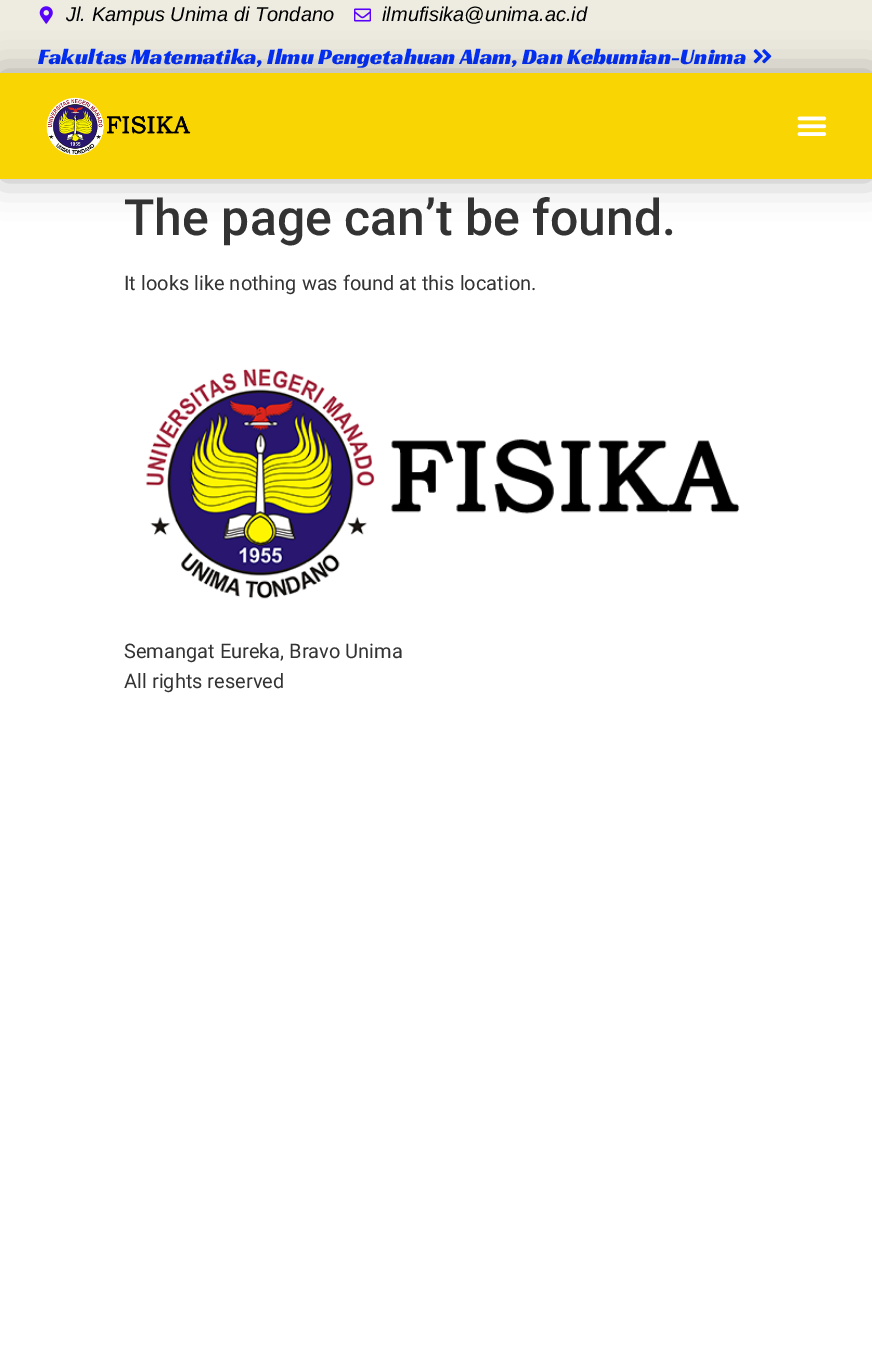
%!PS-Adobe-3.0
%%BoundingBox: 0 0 872 1345
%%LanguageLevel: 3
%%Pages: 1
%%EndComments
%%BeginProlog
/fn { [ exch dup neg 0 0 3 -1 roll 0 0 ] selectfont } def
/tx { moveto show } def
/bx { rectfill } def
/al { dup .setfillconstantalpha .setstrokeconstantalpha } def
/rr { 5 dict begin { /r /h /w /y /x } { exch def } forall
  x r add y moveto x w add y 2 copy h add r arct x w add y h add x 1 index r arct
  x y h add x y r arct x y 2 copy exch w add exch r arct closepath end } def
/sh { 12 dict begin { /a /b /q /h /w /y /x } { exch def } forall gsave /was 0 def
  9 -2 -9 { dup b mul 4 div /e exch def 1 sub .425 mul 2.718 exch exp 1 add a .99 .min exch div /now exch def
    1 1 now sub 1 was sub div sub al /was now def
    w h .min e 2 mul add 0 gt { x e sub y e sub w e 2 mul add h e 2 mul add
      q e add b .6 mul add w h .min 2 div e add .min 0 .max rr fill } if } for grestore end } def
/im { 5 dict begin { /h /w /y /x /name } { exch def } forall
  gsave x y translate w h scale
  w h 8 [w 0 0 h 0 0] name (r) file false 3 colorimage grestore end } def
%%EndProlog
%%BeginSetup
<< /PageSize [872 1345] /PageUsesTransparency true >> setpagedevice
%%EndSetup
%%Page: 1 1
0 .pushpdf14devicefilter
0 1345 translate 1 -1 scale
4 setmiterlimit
1 setgray
0 0 872 1345 bx
0.933 0.925 0.882 setrgbcolor
0 0 872 73 bx
(image0.raw) 39 6 14 18 im
/LiberationSans-Italic 20 fn
0 setgray
(Jl. Kampus Unima di Tondano) 66 21 tx
(image1.raw) 354 8 17 14 im
(ilmufisika@unima.ac.id) 382 21 tx
/RacingSansOne-Regular 22.5 fn
0.016 0.188 0.98 setrgbcolor
(Fakultas Matematika, Ilmu Pengetahuan Alam, Dan Kebumian-Unima) 38 64 tx
(image2.raw) 753 49 19 15 im
0 setgray
0 73 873 106 0 19 0.3 sh
0.98 0.835 0.016 setrgbcolor
0 73 872 106 bx
(image3.raw) 46 97 145 58 im
(image4.raw) 797 116 30 20 im
/Roboto-Medium 50 fn
0.2 setgray
(The page can’t be found.) 124 235 tx
/Roboto-Regular 20 fn
(It looks like nothing was found at this location.) 124 290 tx
(image5.raw) 146 368 594 231 im
(Semangat Eureka, Bravo Unima) 124 658 tx
(All rights reserved) 124 688 tx
.poppdf14devicefilter showpage
%%EOF
